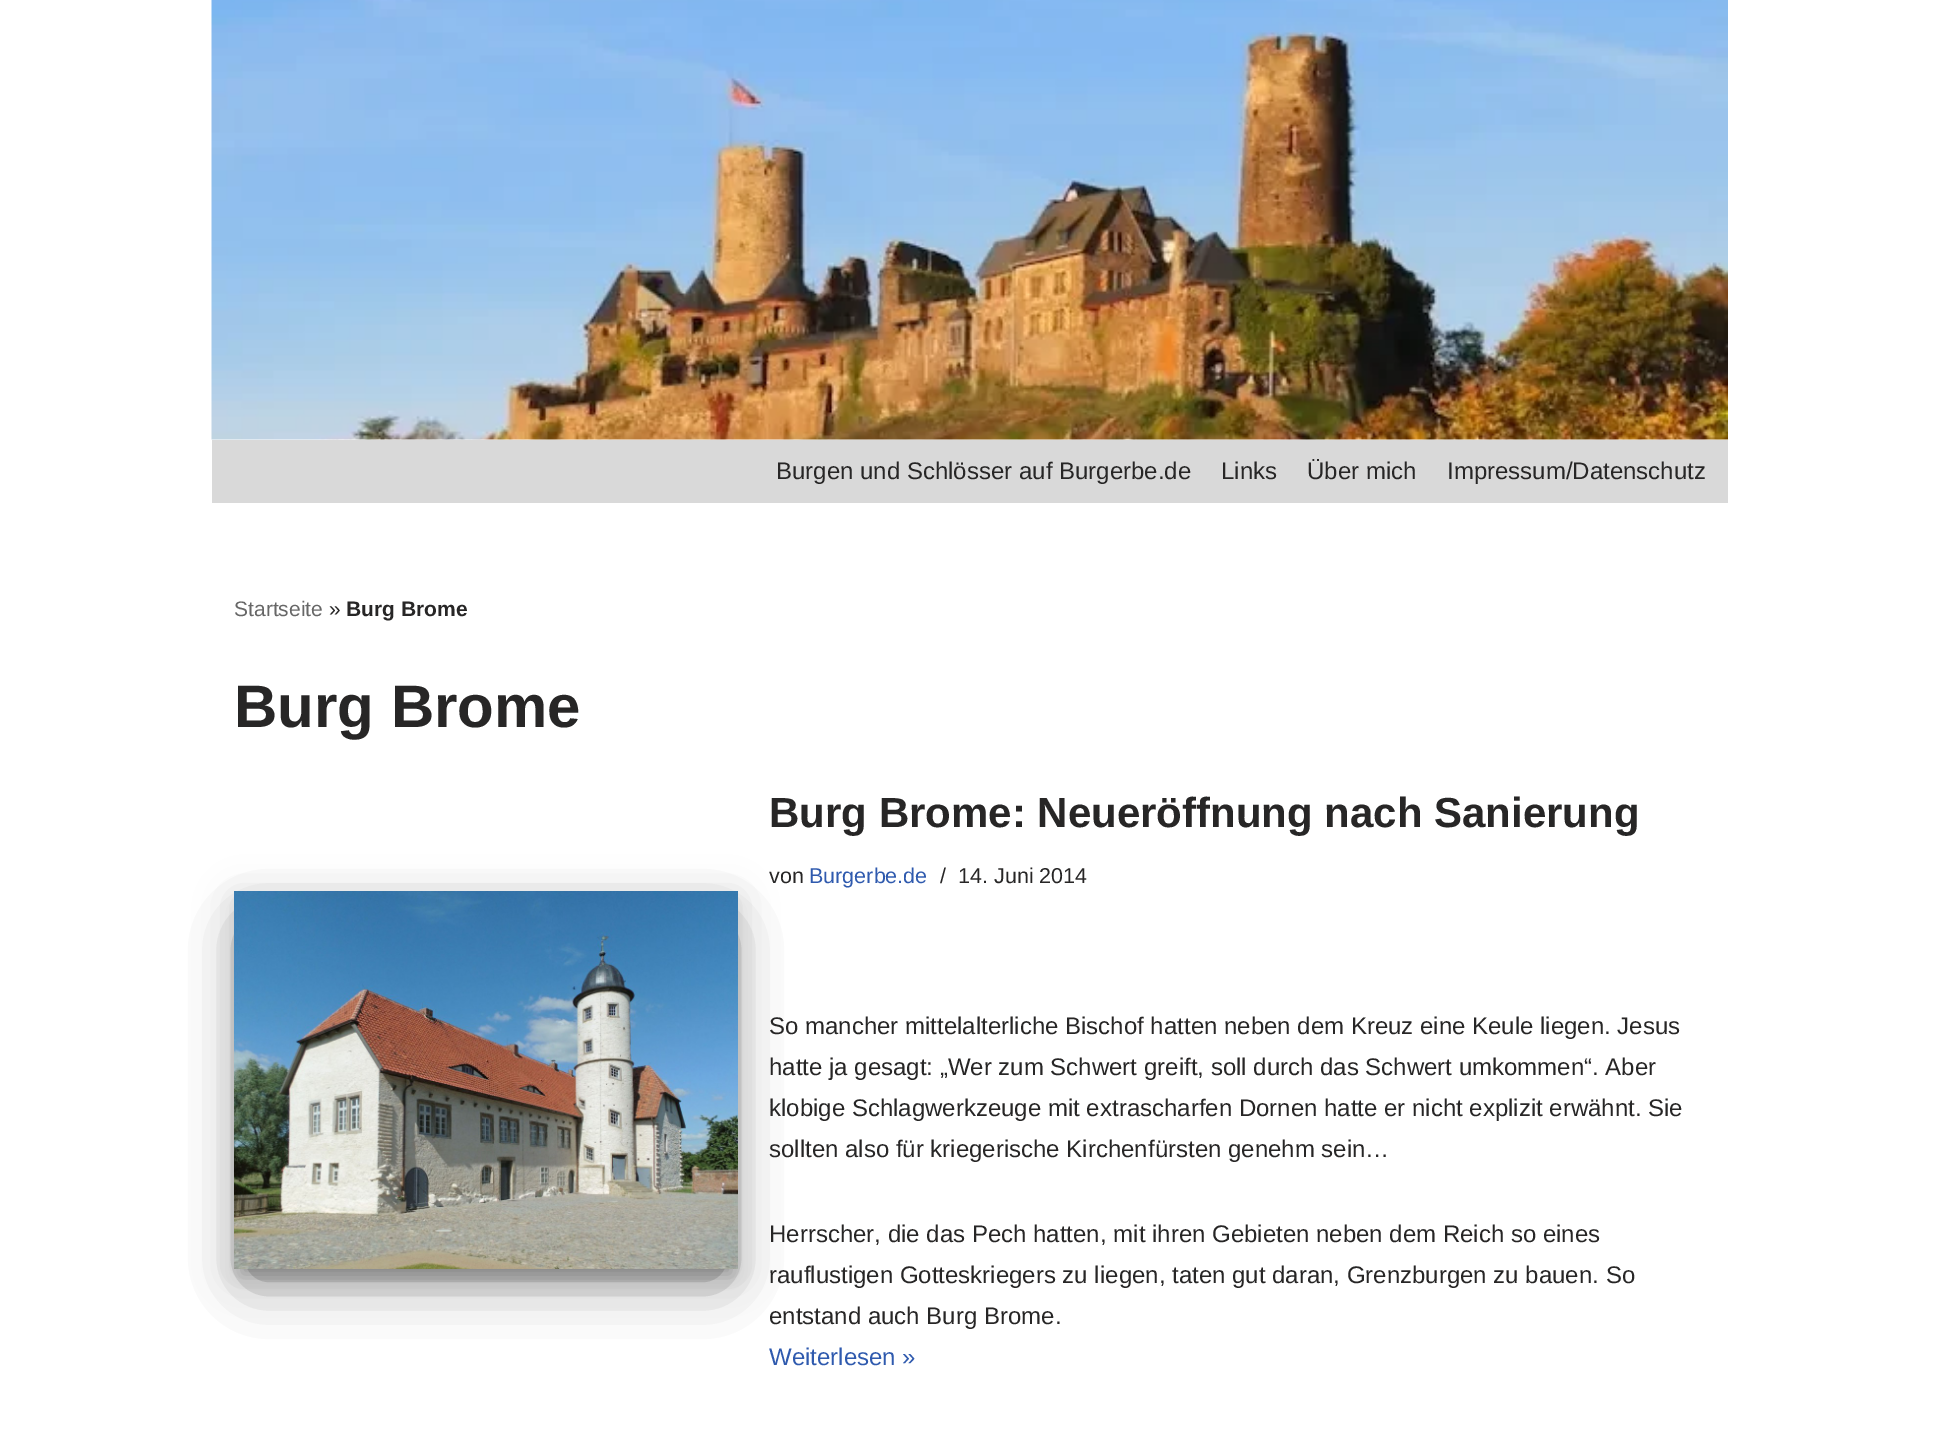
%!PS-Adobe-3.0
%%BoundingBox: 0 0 1939 1444
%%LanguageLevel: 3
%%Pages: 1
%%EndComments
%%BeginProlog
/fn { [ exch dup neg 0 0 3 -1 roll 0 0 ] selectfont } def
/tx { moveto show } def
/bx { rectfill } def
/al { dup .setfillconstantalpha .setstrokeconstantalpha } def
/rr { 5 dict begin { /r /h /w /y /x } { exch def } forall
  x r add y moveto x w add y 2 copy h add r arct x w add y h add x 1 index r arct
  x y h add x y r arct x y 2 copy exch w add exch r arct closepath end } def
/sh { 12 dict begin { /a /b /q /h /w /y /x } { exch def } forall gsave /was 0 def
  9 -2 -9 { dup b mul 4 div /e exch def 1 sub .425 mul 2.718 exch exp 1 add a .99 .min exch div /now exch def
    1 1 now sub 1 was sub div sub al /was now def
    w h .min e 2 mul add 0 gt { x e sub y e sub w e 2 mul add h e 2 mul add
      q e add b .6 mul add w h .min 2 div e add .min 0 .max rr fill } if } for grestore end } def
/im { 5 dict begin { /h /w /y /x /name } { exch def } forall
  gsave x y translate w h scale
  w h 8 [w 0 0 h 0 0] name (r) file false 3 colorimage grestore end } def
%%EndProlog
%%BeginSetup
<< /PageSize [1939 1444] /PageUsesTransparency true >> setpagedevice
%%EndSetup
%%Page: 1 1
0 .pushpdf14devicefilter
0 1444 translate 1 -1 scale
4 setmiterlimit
1 setgray
0 0 1939 1444 bx
(image0.raw) 211 0 1517 440 im
0.08 al
0 setgray
212 440 1516 63 bx
212 440 1516 63 bx
/LiberationSans-Regular 24 fn
1 al
0.153 0.149 0.149 setrgbcolor
(Burgen und Schlösser auf Burgerbe.de) 776 479 tx
(Links) 1221 479 tx
(Über mich) 1307 479 tx
(Impressum/Datenschutz) 1447 479 tx
/LiberationSans-Regular 21 fn
0.404 setgray
(Startseite) 234 616 tx
0.153 0.149 0.149 setrgbcolor
(») 329 616 tx
/LiberationSans-Bold 21 fn
(Burg Brome) 346 616 tx
/LiberationSans-Bold 60 fn
(Burg Brome) 234 727 tx
0 setgray
242 911 489 363 0 7.5 0.2 sh
234 897 504 378 0 19 0.12 sh
252 933 468 342 0 28.5 0.56 sh
(image1.raw) 234 891 504 378 im
/LiberationSans-Bold 42 fn
0.153 0.149 0.149 setrgbcolor
(Burg Brome: Neueröffnung nach Sanierung) 769 827 tx
/LiberationSans-Regular 21.5 fn
(von) 769 883 tx
0.184 0.353 0.682 setrgbcolor
(Burgerbe.de) 809 883 tx
0.153 0.149 0.149 setrgbcolor
(/) 940 883 tx
(14. Juni 2014) 958 883 tx
/LiberationSans-Regular 24 fn
(So mancher mittelalterliche Bischof hatten neben dem Kreuz eine Keule liegen. Jesus) 769 1034 tx
(hatte ja gesagt: „Wer zum Schwert greift, soll durch das Schwert umkommen“. Aber) 769 1075 tx
(klobige Schlagwerkzeuge mit extrascharfen Dornen hatte er nicht explizit erwähnt. Sie) 769 1116 tx
(sollten also für kriegerische Kirchenfürsten genehm sein…) 769 1157 tx
(Herrscher, die das Pech hatten, mit ihren Gebieten neben dem Reich so eines) 769 1242 tx
(rauflustigen Gotteskriegers zu liegen, taten gut daran, Grenzburgen zu bauen. So) 769 1283 tx
(entstand auch Burg Brome.) 769 1324 tx
0.184 0.353 0.682 setrgbcolor
(Weiterlesen ») 769 1365 tx
.poppdf14devicefilter showpage
%%EOF
